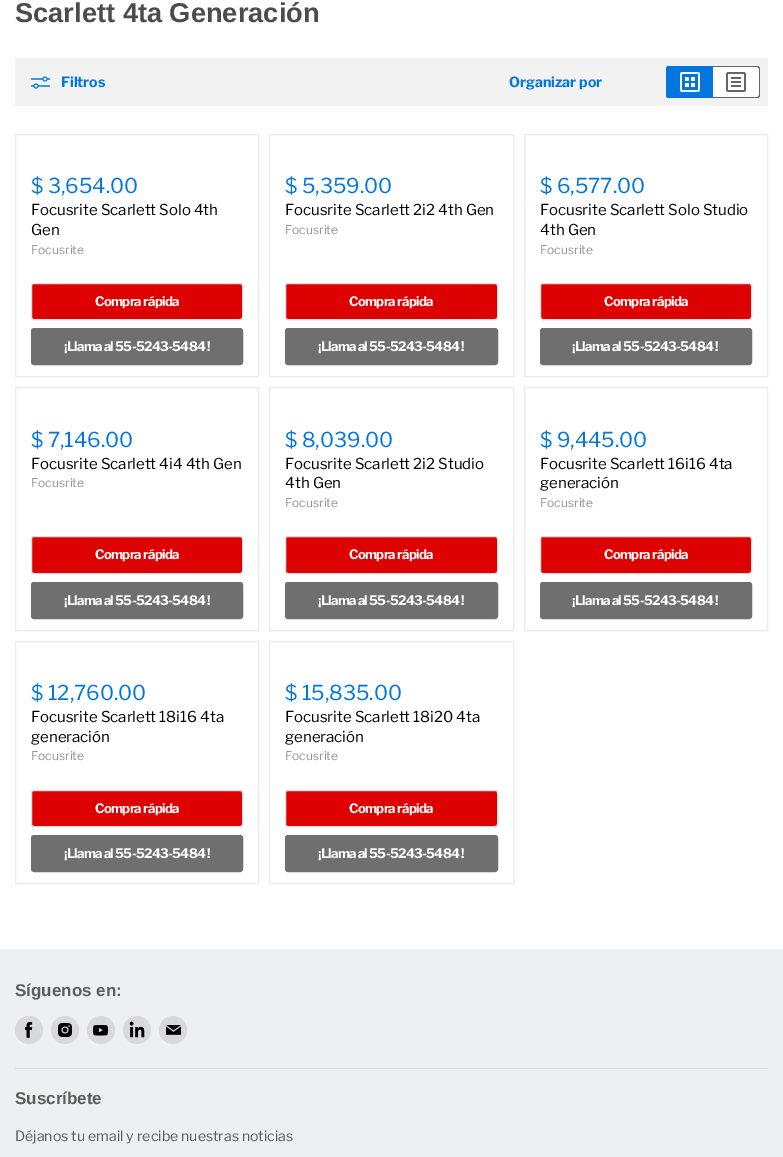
%!PS-Adobe-3.0
%%BoundingBox: 0 0 783 1157
%%LanguageLevel: 3
%%Pages: 1
%%EndComments
%%BeginProlog
/m { moveto } bind def
/l { lineto } bind def
/c { curveto } bind def
/h { closepath } bind def
/f { fill } bind def
/S { stroke } bind def
/q { gsave } bind def
/Q { grestore } bind def
/fn { [ exch dup neg 0 0 3 -1 roll 0 0 ] selectfont } def
/tx { moveto show } def
/bx { rectfill } def
/ci { newpath 0 360 arc closepath } def
/rr { 5 dict begin { /r /h /w /y /x } { exch def } forall
  x r add y moveto x w add y 2 copy h add r arct x w add y h add x 1 index r arct
  x y h add x y r arct x y 2 copy exch w add exch r arct closepath end } def
/im { 5 dict begin { /h /w /y /x /name } { exch def } forall
  gsave x y translate w h scale
  w h 8 [w 0 0 h 0 0] name (r) file false 3 colorimage grestore end } def
%%EndProlog
%%BeginSetup
<< /PageSize [783 1157] >> setpagedevice
%%EndSetup
%%Page: 1 1
0 1157 translate 1 -1 scale
4 setmiterlimit
1 setgray
0 0 783 1157 bx
/Arimo-Bold 27.25 fn
0.298 setgray
(Scarlett 4ta Generación) 15 22 tx
0.949 setgray
15 58 753 48 bx
(image0.raw) 31 76 19 13 im
/LibreFranklin-Bold 14.1 fn
0 0.463 0.871 setrgbcolor
(Filtros) 61 87 tx
(Organizar por) 509 87 tx
669 66 m 713 66 l 713 98 l 669 98 l 667.5 98 666 96.5 666 95 c 666 69 l 666 67.5 667.5 66 669 66 c h f
669 66 m 713 66 l 713 98 l 669 98 l 667 98 666 97 666 95 c 666 69 l 666 67 667 66 669 66 c h 669 67 m 713 67 l 713 97 l 669 97 l 668 97 667 96 667 95 c 667 69 l 667 68 668 67 669 67 c h eofill
(image1.raw) 680 72 20 20 im
1 setgray
713 66 m 757 66 l 758.5 66 760 67.5 760 69 c 760 95 l 760 96.5 758.5 98 757 98 c 713 98 l h f
0.4 setgray
713 66 m 757 66 l 759 66 760 67 760 69 c 760 95 l 760 97 759 98 757 98 c 713 98 l h 713 67 m 757 67 l 758 67 759 68 759 69 c 759 95 l 759 96 758 97 757 97 c 713 97 l h eofill
(image2.raw) 726 72 20 20 im
0.922 setgray
15.5 134.5 243 242 rectstroke
/LibreFranklin-Regular 20.5 fn
0 0.463 0.871 setrgbcolor
($ 3,654.00) 31 193 tx
/LibreFranklin-Regular 15 fn
0 setgray
(Focusrite Scarlett Solo 4th) 31 215 tx
(Gen) 31 235 tx
/LibreFranklin-Regular 12 fn
0.58 setgray
(Focusrite) 31 254 tx
0.871 0.004 0.004 setrgbcolor
31.5 283.5 211 36 2.5 rr q f Q
0.867 setgray
S
/LibreFranklin-Bold 13.1 fn
1 setgray
95 306 m -0.7 0 (Compra rápida) ashow
0.435 setgray
31.5 328.5 211 36 2.5 rr q f Q
S
1 setgray
64 351 m -0.7 0 (¡Llama al 55-5243-5484 !) ashow
0.922 setgray
269.5 134.5 244 242 rectstroke
/LibreFranklin-Regular 20.5 fn
0 0.463 0.871 setrgbcolor
($ 5,359.00) 285 193 tx
/LibreFranklin-Regular 15 fn
0 setgray
(Focusrite Scarlett 2i2 4th Gen) 285 215 tx
/LibreFranklin-Regular 12 fn
0.58 setgray
(Focusrite) 285 234 tx
0.871 0.004 0.004 setrgbcolor
285.5 283.5 212 36 2.5 rr q f Q
0.867 setgray
S
/LibreFranklin-Bold 13.1 fn
1 setgray
349 306 m -0.7 0 (Compra rápida) ashow
0.435 setgray
285.5 328.5 212 36 2.5 rr q f Q
S
1 setgray
318 351 m -0.7 0 (¡Llama al 55-5243-5484 !) ashow
0.922 setgray
524.5 134.5 243 242 rectstroke
/LibreFranklin-Regular 20.5 fn
0 0.463 0.871 setrgbcolor
($ 6,577.00) 540 193 tx
/LibreFranklin-Regular 15 fn
0 setgray
(Focusrite Scarlett Solo Studio) 540 215 tx
(4th Gen) 540 235 tx
/LibreFranklin-Regular 12 fn
0.58 setgray
(Focusrite) 540 254 tx
0.871 0.004 0.004 setrgbcolor
540.5 283.5 211 36 2.5 rr q f Q
0.867 setgray
S
/LibreFranklin-Bold 13.1 fn
1 setgray
604 306 m -0.7 0 (Compra rápida) ashow
0.435 setgray
540.5 328.5 211 36 2.5 rr q f Q
S
1 setgray
572 351 m -0.7 0 (¡Llama al 55-5243-5484 !) ashow
0.922 setgray
15.5 387.5 243 243 rectstroke
/LibreFranklin-Regular 20.5 fn
0 0.463 0.871 setrgbcolor
($ 7,146.00) 31 447 tx
/LibreFranklin-Regular 15 fn
0 setgray
(Focusrite Scarlett 4i4 4th Gen) 31 469 tx
/LibreFranklin-Regular 12 fn
0.58 setgray
(Focusrite) 31 487 tx
0.871 0.004 0.004 setrgbcolor
31.5 536.5 211 37 2.5 rr q f Q
0.867 setgray
S
/LibreFranklin-Bold 13.1 fn
1 setgray
95 559 m -0.7 0 (Compra rápida) ashow
0.435 setgray
31.5 582.5 211 36 2.5 rr q f Q
S
1 setgray
64 605 m -0.7 0 (¡Llama al 55-5243-5484 !) ashow
0.922 setgray
269.5 387.5 244 243 rectstroke
/LibreFranklin-Regular 20.5 fn
0 0.463 0.871 setrgbcolor
($ 8,039.00) 285 447 tx
/LibreFranklin-Regular 15 fn
0 setgray
(Focusrite Scarlett 2i2 Studio) 285 469 tx
(4th Gen) 285 488 tx
/LibreFranklin-Regular 12 fn
0.58 setgray
(Focusrite) 285 507 tx
0.871 0.004 0.004 setrgbcolor
285.5 536.5 212 37 2.5 rr q f Q
0.867 setgray
S
/LibreFranklin-Bold 13.1 fn
1 setgray
349 559 m -0.7 0 (Compra rápida) ashow
0.435 setgray
285.5 582.5 212 36 2.5 rr q f Q
S
1 setgray
318 605 m -0.7 0 (¡Llama al 55-5243-5484 !) ashow
0.922 setgray
524.5 387.5 243 243 rectstroke
/LibreFranklin-Regular 20.5 fn
0 0.463 0.871 setrgbcolor
($ 9,445.00) 540 447 tx
/LibreFranklin-Regular 15 fn
0 setgray
(Focusrite Scarlett 16i16 4ta) 540 469 tx
(generación) 540 488 tx
/LibreFranklin-Regular 12 fn
0.58 setgray
(Focusrite) 540 507 tx
0.871 0.004 0.004 setrgbcolor
540.5 536.5 211 37 2.5 rr q f Q
0.867 setgray
S
/LibreFranklin-Bold 13.1 fn
1 setgray
604 559 m -0.7 0 (Compra rápida) ashow
0.435 setgray
540.5 582.5 211 36 2.5 rr q f Q
S
1 setgray
572 605 m -0.7 0 (¡Llama al 55-5243-5484 !) ashow
0.922 setgray
15.5 641.5 243 242 rectstroke
/LibreFranklin-Regular 20.5 fn
0 0.463 0.871 setrgbcolor
($ 12,760.00) 31 700 tx
/LibreFranklin-Regular 15 fn
0 setgray
(Focusrite Scarlett 18i16 4ta) 31 722 tx
(generación) 31 742 tx
/LibreFranklin-Regular 12 fn
0.58 setgray
(Focusrite) 31 760 tx
0.871 0.004 0.004 setrgbcolor
31.5 790.5 211 36 2.5 rr q f Q
0.867 setgray
S
/LibreFranklin-Bold 13.1 fn
1 setgray
95 813 m -0.7 0 (Compra rápida) ashow
0.435 setgray
31.5 835.5 211 36 2.5 rr q f Q
S
1 setgray
64 858 m -0.7 0 (¡Llama al 55-5243-5484 !) ashow
0.922 setgray
269.5 641.5 244 242 rectstroke
/LibreFranklin-Regular 20.5 fn
0 0.463 0.871 setrgbcolor
($ 15,835.00) 285 700 tx
/LibreFranklin-Regular 15 fn
0 setgray
(Focusrite Scarlett 18i20 4ta) 285 722 tx
(generación) 285 742 tx
/LibreFranklin-Regular 12 fn
0.58 setgray
(Focusrite) 285 760 tx
0.871 0.004 0.004 setrgbcolor
285.5 790.5 212 36 2.5 rr q f Q
0.867 setgray
S
/LibreFranklin-Bold 13.1 fn
1 setgray
349 813 m -0.7 0 (Compra rápida) ashow
0.435 setgray
285.5 835.5 212 36 2.5 rr q f Q
S
1 setgray
318 858 m -0.7 0 (¡Llama al 55-5243-5484 !) ashow
0.929 0.937 0.953 setrgbcolor
0 949 783 208 bx
0.843 0.851 0.863 setrgbcolor
15 1068 753 1 bx
/Arimo-Bold 17 fn
0.361 setgray
(Síguenos en:) 15 996 tx
0.843 0.851 0.863 setrgbcolor
29 1030 14 ci f
(image3.raw) 25 1022 8 16 im
65 1030 14 ci f
(image4.raw) 58 1023 14 14 im
101 1030 14 ci f
(image5.raw) 93 1025 15 11 im
137 1030 14 ci f
(image6.raw) 129 1021 16 17 im
173 1030 14 ci f
(image7.raw) 166 1025 15 10 im
0.361 setgray
(Suscríbete) 15 1104 tx
/LibreFranklin-Regular 14.1 fn
(Déjanos tu email y recibe nuestras noticias) 15 1141 tx
showpage
%%EOF
